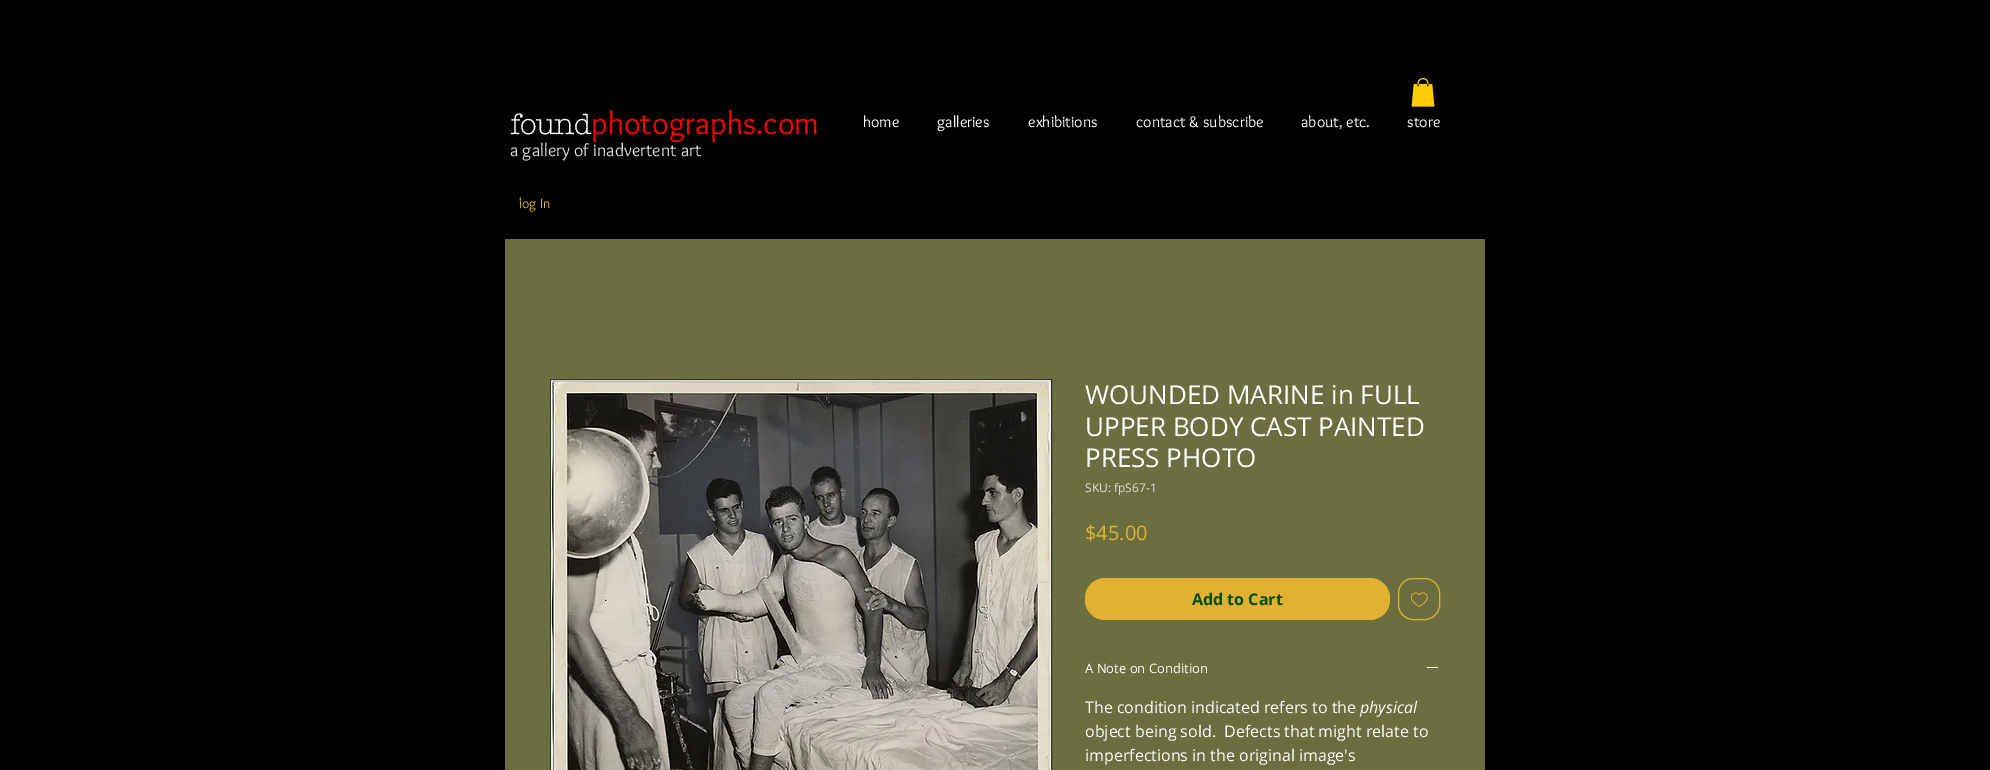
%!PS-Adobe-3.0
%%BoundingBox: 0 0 1990 770
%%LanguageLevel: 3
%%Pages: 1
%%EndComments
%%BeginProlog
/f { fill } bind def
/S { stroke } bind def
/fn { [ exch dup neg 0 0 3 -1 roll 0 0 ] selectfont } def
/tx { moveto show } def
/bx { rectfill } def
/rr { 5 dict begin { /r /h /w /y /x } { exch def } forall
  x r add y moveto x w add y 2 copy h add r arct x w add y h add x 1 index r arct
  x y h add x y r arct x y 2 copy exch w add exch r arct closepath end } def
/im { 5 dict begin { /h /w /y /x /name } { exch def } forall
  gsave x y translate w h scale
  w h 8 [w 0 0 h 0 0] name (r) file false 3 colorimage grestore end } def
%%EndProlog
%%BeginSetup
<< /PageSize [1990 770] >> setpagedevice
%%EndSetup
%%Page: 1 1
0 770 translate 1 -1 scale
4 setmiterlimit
0 setgray
0 0 1990 770 bx
(image0.raw) 1411 78 24 29 im
/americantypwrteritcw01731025-Bold 28 fn
1 setgray
(found) 510 134 tx
/Overlock-Regular 32 fn
1 0 0 setrgbcolor
(photographs.com) 591 134 tx
/Overlock-Regular 18 fn
0.867 setgray
(a gallery of inadvertent art) 510 156 tx
/Overlock-Regular 16 fn
1 setgray
(home) 863 127 tx
(galleries) 937 127 tx
(exhibitions) 1028 127 tx
(contact & subscribe) 1136 127 tx
(about, etc.) 1301 127 tx
(store) 1407 127 tx
/Overlock-Regular 14 fn
0.89 0.694 0.196 setrgbcolor
(log In) 519 208 tx
0.42 0.431 0.247 setrgbcolor
505 239 980 531 bx
0.2 setgray
550.5 379.5 501 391 rectstroke
(image1.raw) 551 380 500 390 im
/OpenSans-Regular 26 fn
1 setgray
(WOUNDED MARINE in FULL) 1085 404 tx
(UPPER BODY CAST PAINTED) 1085 436 tx
(PRESS PHOTO) 1085 467 tx
/OpenSans-Regular 12 fn
0.867 setgray
(SKU: fpS67-1) 1085 492 tx
/OpenSans-Regular 20 fn
0.89 0.694 0.196 setrgbcolor
($45.00) 1085 540 tx
1085 578 305 42 20 rr f
/OpenSans-Bold 16 fn
0 0.306 0.078 setrgbcolor
(Add to Cart) 1192 605 tx
0.89 0.694 0.196 setrgbcolor
1398.5 578.5 41 41 14.5 rr S
(image2.raw) 1410 592 18 15 im
/OpenSans-Regular 13 fn
1 setgray
(A Note on Condition) 1085 673 tx
1427 667 11 1 bx
/OpenSans-Regular 16 fn
(The condition indicated refers to the) 1085 713 tx
/OpenSans-Italic 16 fn
(physical) 1360 713 tx
/OpenSans-Regular 16 fn
(object being sold.  Defects that might relate to) 1085 737 tx
(imperfections in the original image's) 1085 761 tx
showpage
%%EOF
